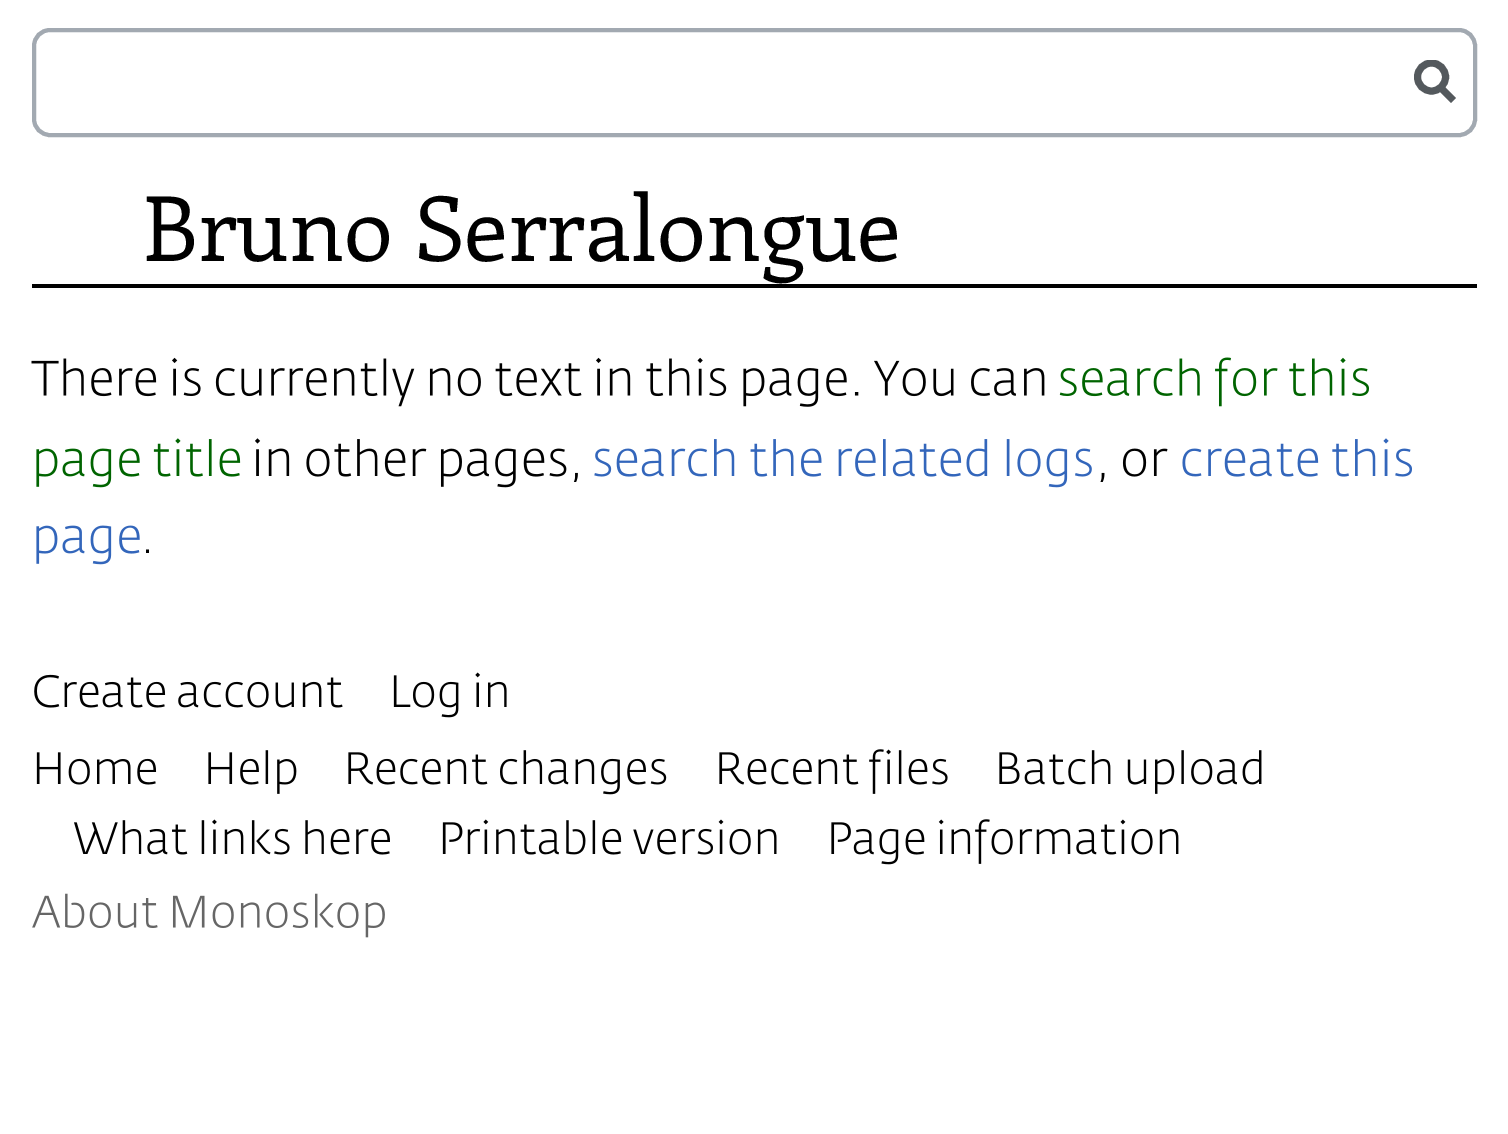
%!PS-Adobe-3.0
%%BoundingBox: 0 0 1508 1134
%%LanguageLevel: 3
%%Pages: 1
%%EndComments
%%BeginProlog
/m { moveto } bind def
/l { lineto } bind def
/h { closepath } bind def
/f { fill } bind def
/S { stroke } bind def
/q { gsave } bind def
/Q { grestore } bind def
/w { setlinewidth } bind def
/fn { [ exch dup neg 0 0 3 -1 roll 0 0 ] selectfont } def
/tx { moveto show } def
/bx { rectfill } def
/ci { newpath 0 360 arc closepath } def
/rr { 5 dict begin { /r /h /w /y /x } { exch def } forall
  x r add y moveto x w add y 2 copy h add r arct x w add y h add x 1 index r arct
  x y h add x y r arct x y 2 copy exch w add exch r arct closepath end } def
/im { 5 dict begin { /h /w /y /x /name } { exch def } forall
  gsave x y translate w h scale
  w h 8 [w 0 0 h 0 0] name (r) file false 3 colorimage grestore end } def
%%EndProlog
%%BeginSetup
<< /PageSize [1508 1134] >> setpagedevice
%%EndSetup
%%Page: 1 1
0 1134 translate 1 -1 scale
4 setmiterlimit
1 setgray
0 0 1508 1134 bx
0.635 0.663 0.694 setrgbcolor
4 w
34 30 1441 105 16 rr S
0.329 0.349 0.365 setrgbcolor
7 w
1453.5 100.5 m 1439.5 86.5 l S
q
1414 60 42 45 rectclip
1431.5 77 14 ci S
Q
(image0.raw) 34 674 309 34 im
(image1.raw) 393 672 114 46 im
(image2.raw) 36 752 121 33 im
(image3.raw) 208 750 89 44 im
(image4.raw) 348 750 319 45 im
(image5.raw) 719 749 229 45 im
(image6.raw) 999 750 263 44 im
(image7.raw) 74 819 316 36 im
(image8.raw) 442 819 335 36 im
(image9.raw) 831 819 348 46 im
0 setgray
32 284 1445 4 bx
/Enriqueta-Regular 89.5 fn
(Bruno Serralongue) 142 261 tx
(image10.raw) 31 357 1014 50 im
(image11.raw) 1059 357 310 50 im
(image12.raw) 36 438 205 50 im
(image13.raw) 255 438 323 50 im
(image14.raw) 594 439 498 49 im
(image15.raw) 1100 448 68 34 im
(image16.raw) 1182 438 230 39 im
(image17.raw) 36 525 104 40 im
146 553 m 146 549.5 l 149 549.5 l 149 553 l h f
(image18.raw) 32 893 353 45 im
showpage
%%EOF
